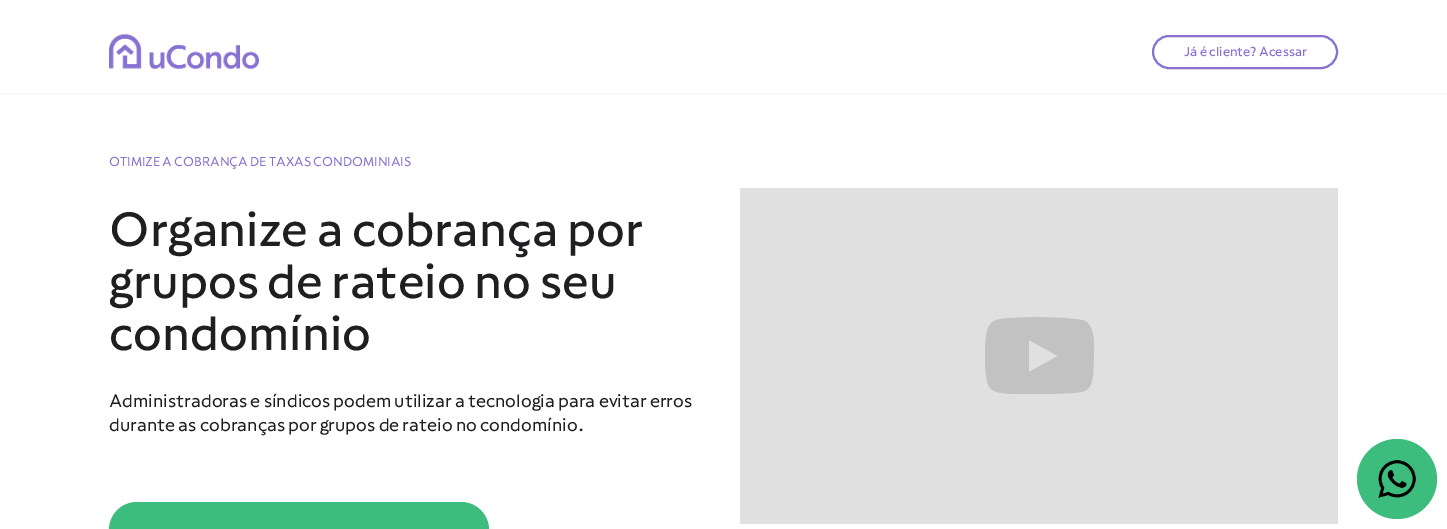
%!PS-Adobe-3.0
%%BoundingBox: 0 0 1447 529
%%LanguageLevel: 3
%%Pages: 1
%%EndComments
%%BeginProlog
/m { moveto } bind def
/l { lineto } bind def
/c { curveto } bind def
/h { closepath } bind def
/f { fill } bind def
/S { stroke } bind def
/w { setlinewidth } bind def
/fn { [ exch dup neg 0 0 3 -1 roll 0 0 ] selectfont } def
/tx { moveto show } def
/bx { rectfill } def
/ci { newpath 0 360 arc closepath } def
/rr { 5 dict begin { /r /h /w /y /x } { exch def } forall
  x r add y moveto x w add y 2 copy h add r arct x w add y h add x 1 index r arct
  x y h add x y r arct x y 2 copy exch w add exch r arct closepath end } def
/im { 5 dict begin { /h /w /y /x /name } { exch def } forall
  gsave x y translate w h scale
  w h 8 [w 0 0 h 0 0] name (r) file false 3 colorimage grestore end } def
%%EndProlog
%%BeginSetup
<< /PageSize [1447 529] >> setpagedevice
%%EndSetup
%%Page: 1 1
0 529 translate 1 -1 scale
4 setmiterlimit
1 setgray
0 0 1447 529 bx
0.961 setgray
0 93 1447 1 bx
(image0.raw) 109 33 150 37 im
0.529 0.443 0.82 setrgbcolor
2 w
1153 36 184 32 16 rr S
/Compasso-Medium 13 fn
(Já é cliente? Acessar) 1184 56 tx
/Compasso-Regular 13 fn
(OTIMIZE A COBRANÇA DE TAXAS CONDOMINIAIS) 109 166 tx
/Compasso-Medium 48 fn
0.114 0.122 0.125 setrgbcolor
(Organize a cobrança por) 109 246 tx
(grupos de rateio no seu) 109 298 tx
(condomínio) 109 350 tx
/Compasso-Regular 18 fn
(Administradoras e síndicos podem utilizar a tecnologia para evitar erros) 109 407 tx
(durante as cobranças por grupos de rateio no condomínio.) 109 431 tx
0.235 0.741 0.49 setrgbcolor
109 502 380 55 28 rr f
0.878 setgray
740 188 598 336 bx
0.761 setgray
1029 372 m 1029 340 l 1058 356 l h 1082 320 m 1065 318 l 1034 317 l 1025 318 1001 317 994 321 c 991 323 989 325 988 328 c 984 337 984 374 988 384 c 989 388 993 391 997 392 c 1005 394 1013 394 1021 394 c 1051 394 l 1072 393 l 1087 392 1091 390 1093 375 c 1094 353 l 1094 343 1095 323 1082 320 c h eofill
0.235 0.741 0.49 setrgbcolor
1397 479 40 ci f
(image1.raw) 1378 460 38 38 im
showpage
%%EOF
